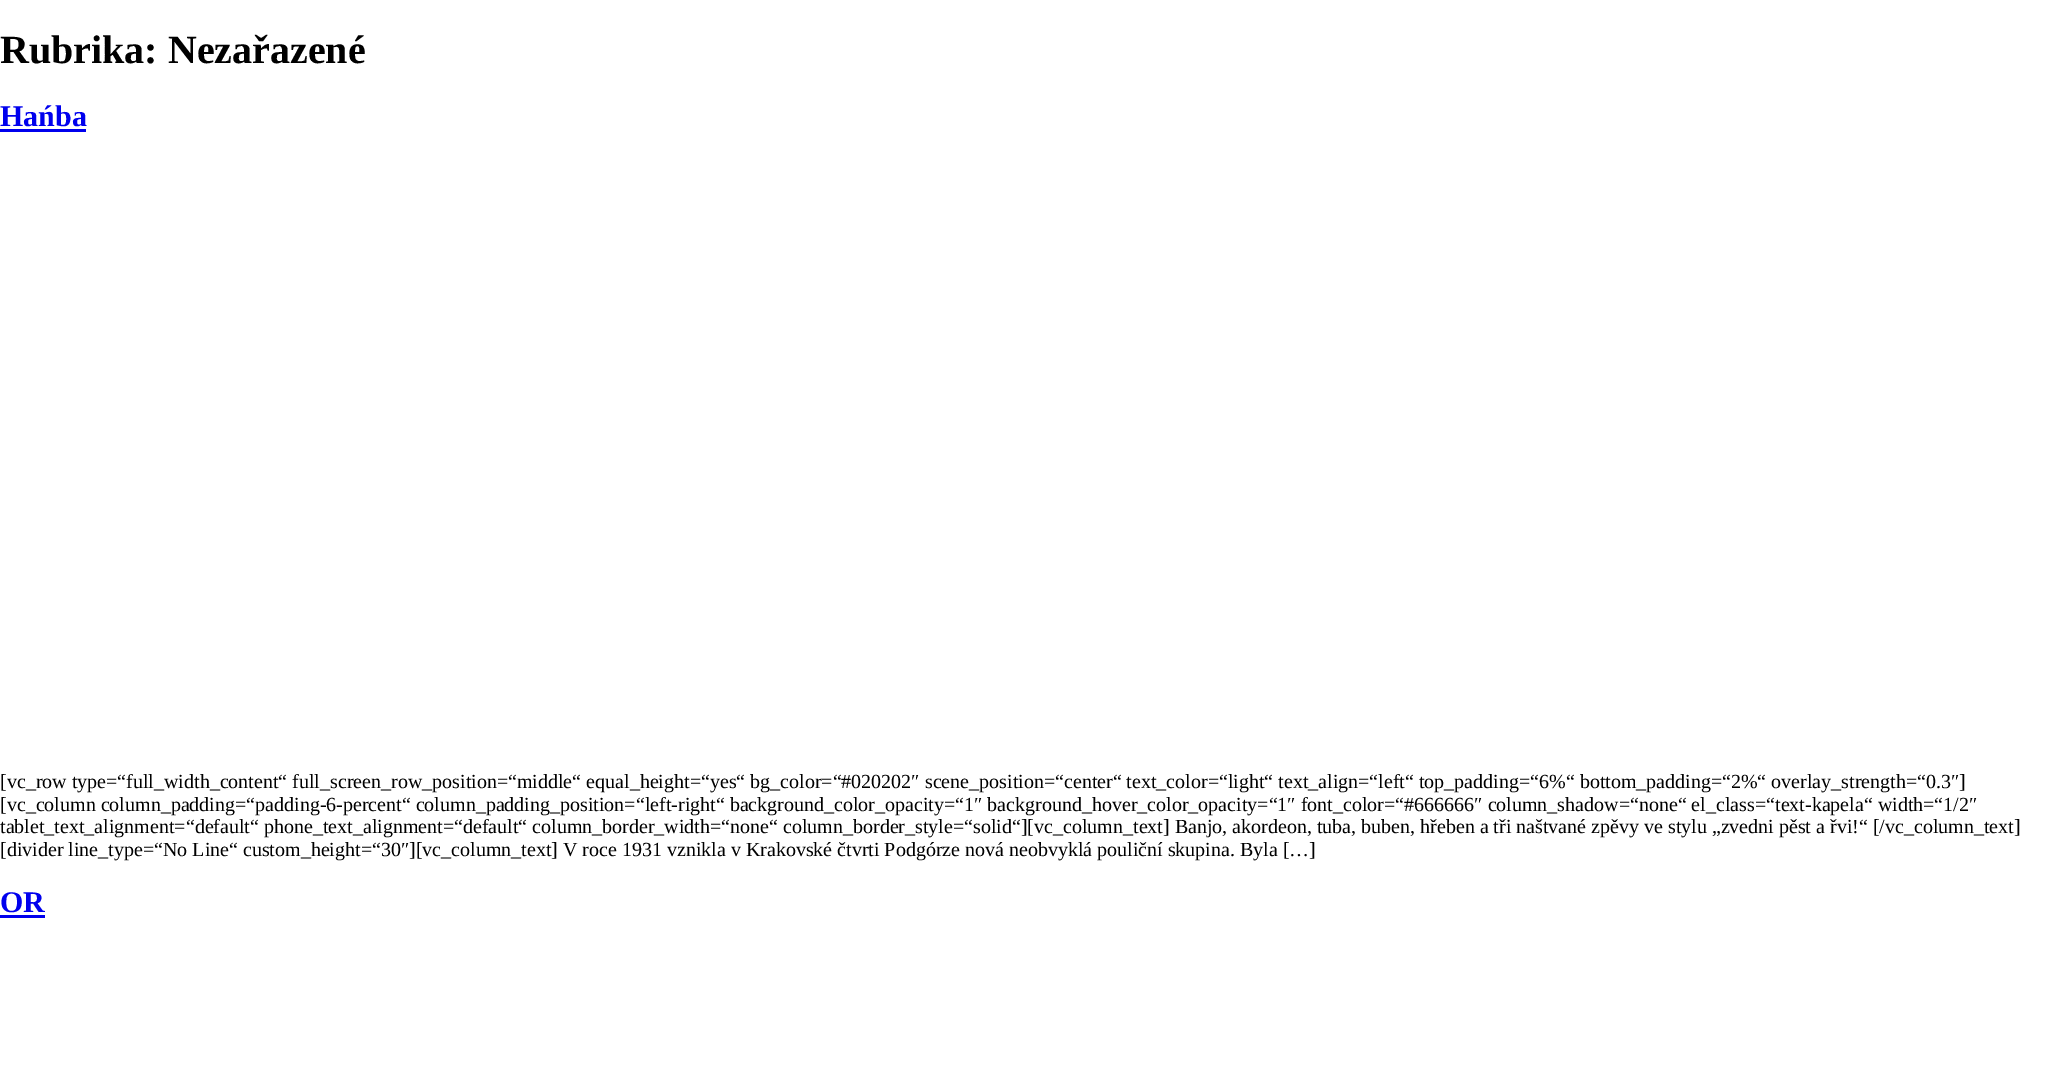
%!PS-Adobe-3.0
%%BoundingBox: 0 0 2061 1077
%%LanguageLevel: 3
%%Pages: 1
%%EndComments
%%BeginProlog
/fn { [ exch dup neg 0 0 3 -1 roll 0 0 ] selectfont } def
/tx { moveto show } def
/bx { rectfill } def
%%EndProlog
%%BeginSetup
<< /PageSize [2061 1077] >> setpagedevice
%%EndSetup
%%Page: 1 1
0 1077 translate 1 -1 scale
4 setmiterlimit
1 setgray
0 0 2061 1077 bx
/LiberationSerif-Bold 40 fn
0 setgray
(Rubrika: Nezařazené) 0 63 tx
/LiberationSerif-Bold 30 fn
0 0 0.933 setrgbcolor
(Hańba) 0 126 tx
0 129 86 3 bx
/LiberationSerif-Regular 20 fn
0 setgray
([vc_row type=“full_width_content“ full_screen_row_position=“middle“ equal_height=“yes“ bg_color=“#020202″ scene_position=“center“ text_color=“light“ text_align=“left“ top_padding=“6%“ bottom_padding=“2%“ overlay_strength=“0.3″]) 0 788 tx
([vc_column column_padding=“padding-6-percent“ column_padding_position=“left-right“ background_color_opacity=“1″ background_hover_color_opacity=“1″ font_color=“#666666″ column_shadow=“none“ el_class=“text-kapela“ width=“1/2″) 0 811 tx
(tablet_text_alignment=“default“ phone_text_alignment=“default“ column_border_width=“none“ column_border_style=“solid“][vc_column_text] Banjo, akordeon, tuba, buben, hřeben a tři naštvané zpěvy ve stylu „zvedni pěst a řvi!“ [/vc_column_text]) 0 833 tx
([divider line_type=“No Line“ custom_height=“30″][vc_column_text] V roce 1931 vznikla v Krakovské čtvrti Podgórze nová neobvyklá pouliční skupina. Byla […]) 0 856 tx
/LiberationSerif-Bold 30 fn
0 0 0.933 setrgbcolor
(OR) 0 912 tx
0 915 45 3 bx
showpage
%%EOF
